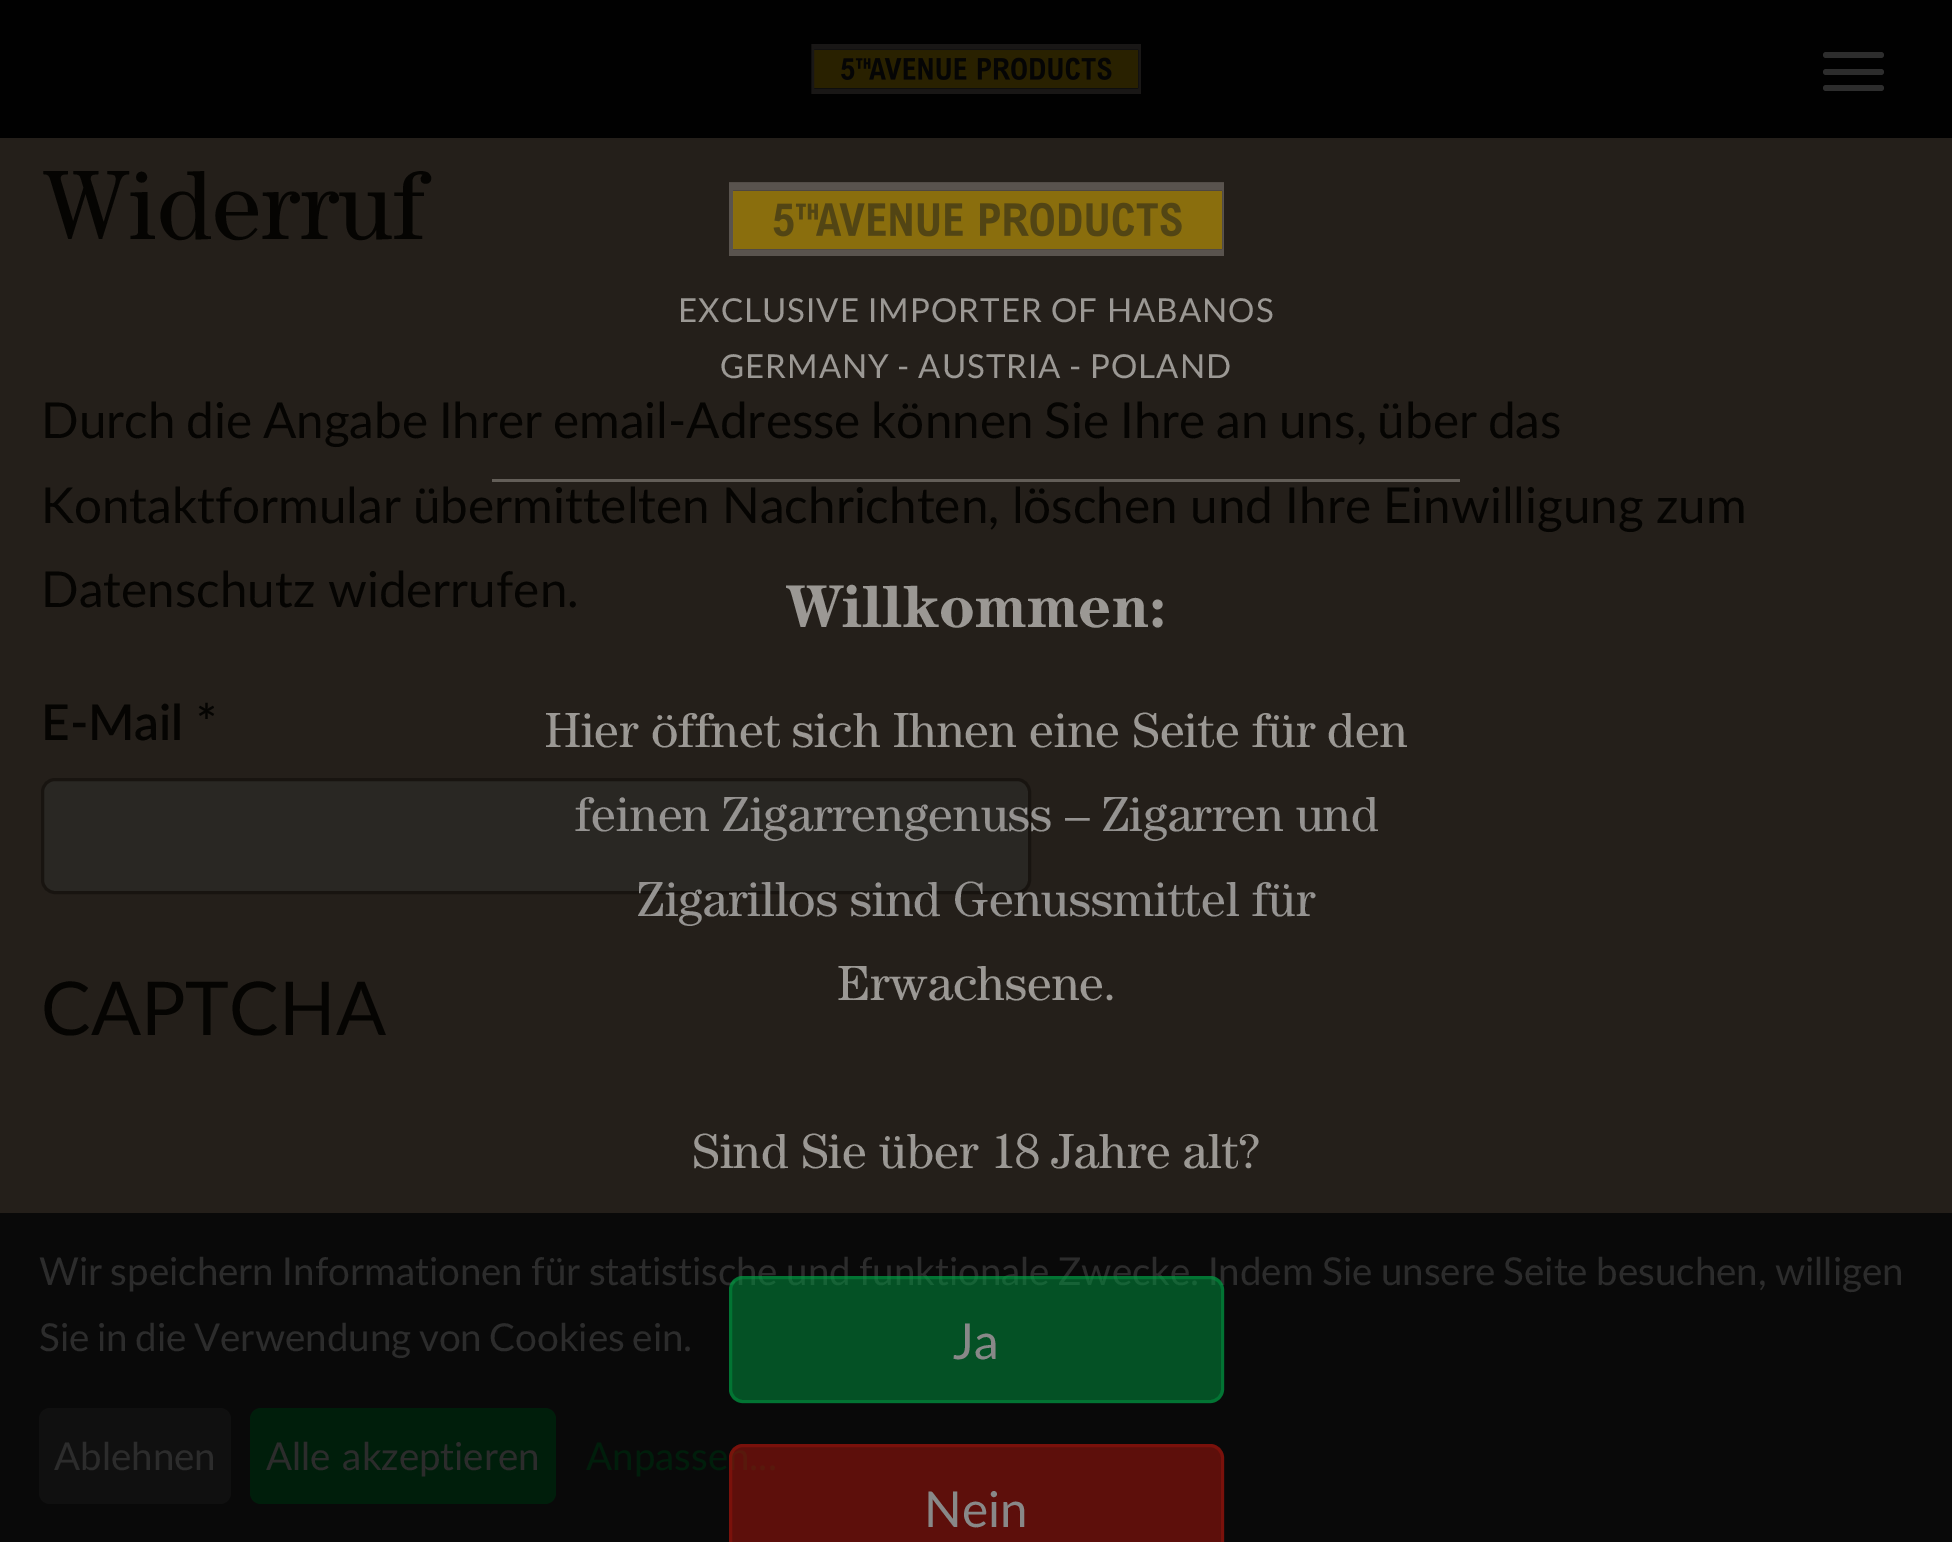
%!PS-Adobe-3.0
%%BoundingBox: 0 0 1952 1542
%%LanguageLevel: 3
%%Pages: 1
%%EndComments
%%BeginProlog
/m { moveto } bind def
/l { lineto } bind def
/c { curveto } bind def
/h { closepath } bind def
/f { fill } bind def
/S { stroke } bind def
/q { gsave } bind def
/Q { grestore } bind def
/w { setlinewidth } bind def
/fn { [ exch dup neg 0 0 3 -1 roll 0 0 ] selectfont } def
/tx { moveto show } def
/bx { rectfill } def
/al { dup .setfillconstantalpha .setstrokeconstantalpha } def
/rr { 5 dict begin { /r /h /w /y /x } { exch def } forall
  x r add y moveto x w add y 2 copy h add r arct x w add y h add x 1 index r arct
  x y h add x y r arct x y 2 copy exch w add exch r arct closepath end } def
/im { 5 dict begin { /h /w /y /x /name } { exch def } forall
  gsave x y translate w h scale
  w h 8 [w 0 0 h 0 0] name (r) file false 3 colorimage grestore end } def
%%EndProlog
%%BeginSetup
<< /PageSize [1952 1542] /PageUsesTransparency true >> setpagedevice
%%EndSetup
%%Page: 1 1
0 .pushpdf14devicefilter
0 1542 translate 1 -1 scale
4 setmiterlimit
0.141 0.122 0.102 setrgbcolor
0 0 1952 1542 bx
0.004 setgray
0 0 1952 138 bx
(image0.raw) 811 44 330 50 im
0.176 setgray
1823 52 61 6 3 rr f
1823 69 61 6 3 rr f
1823 85 61 6 3 rr f
/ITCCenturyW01-Regular 99 fn
0.02 0.016 0.008 setrgbcolor
(Widerruf) 41 239 tx
/Lato-Regular 49.5 fn
41 438 m -2 0 32 (Durch die Angabe Ihrer email-Adresse können Sie Ihre an uns, über das) widthshow
41 523 m -0.5 0 32 (Kontaktformular übermittelten Nachrichten, löschen und Ihre Einwilligung zum) widthshow
(Datenschutz widerrufen.) 41 607 tx
/Lato-SemiBold 49.5 fn
(E-Mail *) 41 740 tx
0.161 0.153 0.137 setrgbcolor
42.5 779.5 987 113 12.5 rr q f Q
0.094 0.078 0.063 setrgbcolor
3 w
S
/Lato-Regular 74.25 fn
0.02 0.016 0.008 setrgbcolor
(CAPTCHA) 41 1035 tx
(image1.raw) 729 182 495 74 im
/Lato-Regular 33 fn
0.608 0.596 0.58 setrgbcolor
678 322 m -1 0 32 1.05 0 (EXCLUSIVE IMPORTER OF HABANOS) awidthshow
720 378 m -2 0 32 1.05 0 (GERMANY - AUSTRIA - POLAND) awidthshow
0.388 0.369 0.345 setrgbcolor
492 479 968 3 bx
/ITCCenturyW01-Bold 60.5 fn
0.608 0.596 0.58 setrgbcolor
(Willkommen:) 786 627 tx
/ITCCenturyW01-Regular 49.5 fn
(Hier öffnet sich Ihnen eine Seite für den) 545 747 tx
0.584 0.576 0.569 setrgbcolor
(feinen Zigarrengenuss – Zigarren und) 575 831 tx
(Zigarillos sind Genussmittel für) 637 916 tx
0.608 0.596 0.58 setrgbcolor
(Erwachsene.) 837 1000 tx
(Sind Sie über 18 Jahre alt?) 692 1168 tx
0.035 setgray
0 1213 1952 329 bx
/Lato-Regular 38.5 fn
0.173 setgray
39 1285 m -1.5 0 32 (Wir speichern Informationen für statistische und funktionale Zwecke. Indem Sie unsere Seite besuchen, willigen) widthshow
0.51 al
0 0.588 0.251 setrgbcolor
729 1276 495 127 14 rr f
730.5 1277.5 492 124 12.5 rr S
/Lato-Regular 49.5 fn
1 al
0.533 setgray
(Ja) 953 1359 tx
/Lato-Regular 38.5 fn
0 0.118 0.043 setrgbcolor
(Anpassen...) 586 1470 tx
0.51 al
0.678 0.082 0.051 setrgbcolor
743 1444 m 1210 1444 l 1217.5 1444 1224 1450.5 1224 1458 c 1224 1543 l 729 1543 l 729 1458 l 729 1450.5 735.5 1444 743 1444 c h f
0.584 0.071 0.043 setrgbcolor
730.5 1445.5 492 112 12.5 rr S
/Lato-Regular 49.5 fn
1 al
0.533 setgray
(Nein) 924 1527 tx
/Lato-Regular 38.5 fn
0.173 setgray
39 1351 m -2.25 0 32 (Sie in die Verwendung von Cookies ein.) widthshow
0.063 setgray
39 1408 192 96 11 rr f
0.173 setgray
(Ablehnen) 54 1470 tx
0 0.118 0.043 setrgbcolor
250 1408 306 96 11 rr f
0.173 setgray
266 1470 m 2 0 32 (Alle akzeptieren) widthshow
.poppdf14devicefilter showpage
%%EOF
